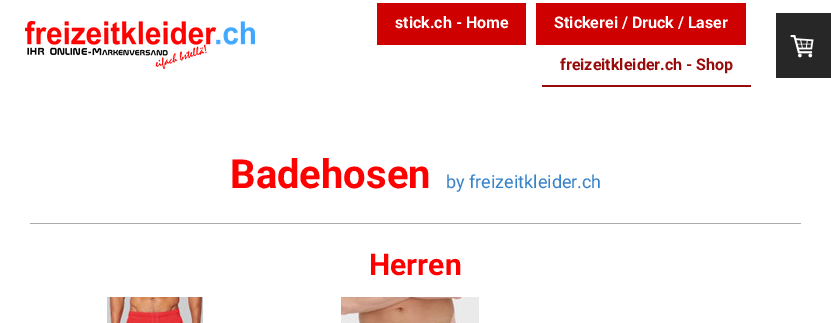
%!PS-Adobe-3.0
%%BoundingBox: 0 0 831 323
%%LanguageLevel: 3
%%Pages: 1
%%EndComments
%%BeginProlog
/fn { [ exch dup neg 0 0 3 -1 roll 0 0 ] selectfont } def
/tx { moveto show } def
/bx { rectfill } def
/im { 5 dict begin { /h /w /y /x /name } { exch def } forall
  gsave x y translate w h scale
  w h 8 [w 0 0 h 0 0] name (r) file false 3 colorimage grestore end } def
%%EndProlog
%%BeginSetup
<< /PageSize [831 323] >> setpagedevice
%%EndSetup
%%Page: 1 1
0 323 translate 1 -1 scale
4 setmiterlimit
1 setgray
0 0 831 323 bx
(image0.raw) 25 21 230 48 im
0.808 0 0 setrgbcolor
377 3 149 42 bx
/Roboto-Bold 16 fn
1 setgray
(stick.ch - Home) 395 28 tx
0.808 0 0 setrgbcolor
536 3 210 42 bx
1 setgray
(Stickerei / Druck / Laser) 554 28 tx
0.596 0.043 0.043 setrgbcolor
542 85 209 2 bx
(freizeitkleider.ch - Shop) 560 70 tx
0.153 setgray
776 13 55 65 bx
(image1.raw) 790 35 24 23 im
/Roboto-Bold 40 fn
1 0 0 setrgbcolor
(Badehosen) 230 188 tx
/Roboto-Regular 18 fn
0.216 0.51 0.784 setrgbcolor
(by freizeitkleider.ch) 446 188 tx
0.671 setgray
30 223 771 1 bx
/Roboto-Bold 30 fn
1 0 0 setrgbcolor
(Herren) 369 275 tx
(image2.raw) 107 297 96 26 im
(image3.raw) 341 297 138 26 im
showpage
%%EOF
